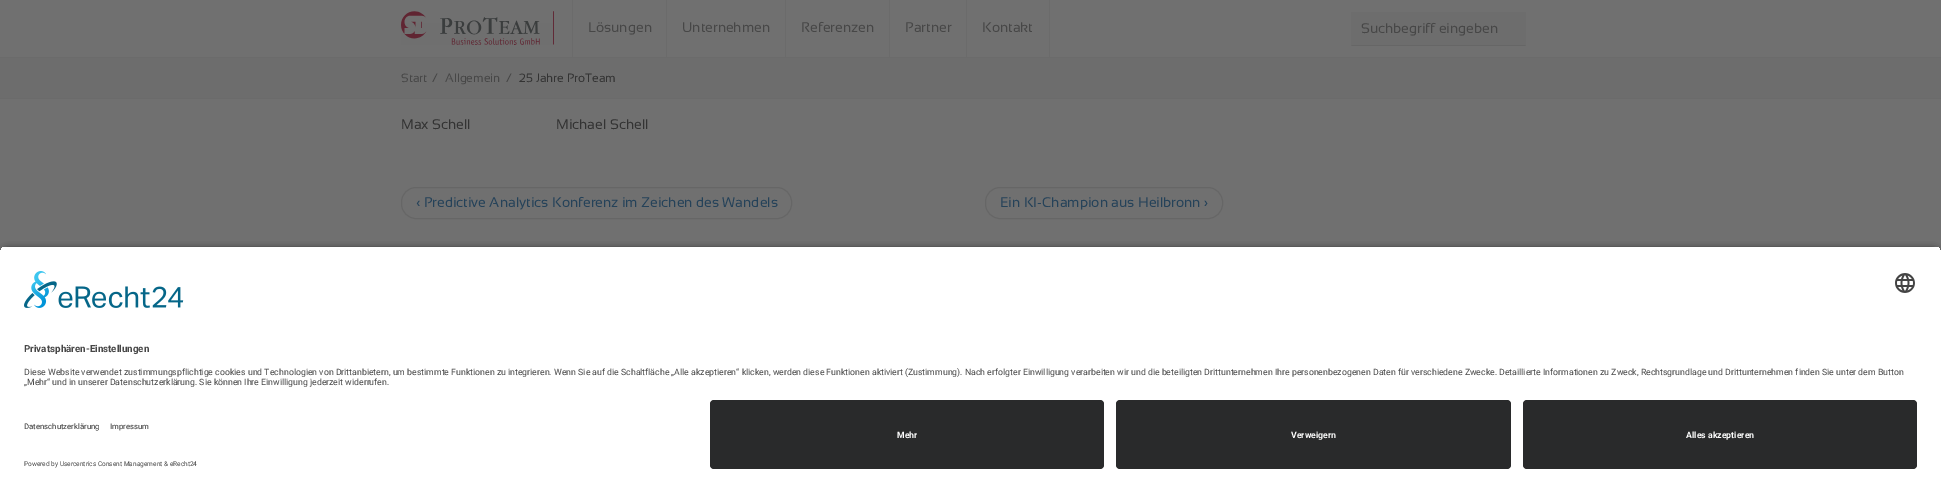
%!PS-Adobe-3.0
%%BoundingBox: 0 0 1941 493
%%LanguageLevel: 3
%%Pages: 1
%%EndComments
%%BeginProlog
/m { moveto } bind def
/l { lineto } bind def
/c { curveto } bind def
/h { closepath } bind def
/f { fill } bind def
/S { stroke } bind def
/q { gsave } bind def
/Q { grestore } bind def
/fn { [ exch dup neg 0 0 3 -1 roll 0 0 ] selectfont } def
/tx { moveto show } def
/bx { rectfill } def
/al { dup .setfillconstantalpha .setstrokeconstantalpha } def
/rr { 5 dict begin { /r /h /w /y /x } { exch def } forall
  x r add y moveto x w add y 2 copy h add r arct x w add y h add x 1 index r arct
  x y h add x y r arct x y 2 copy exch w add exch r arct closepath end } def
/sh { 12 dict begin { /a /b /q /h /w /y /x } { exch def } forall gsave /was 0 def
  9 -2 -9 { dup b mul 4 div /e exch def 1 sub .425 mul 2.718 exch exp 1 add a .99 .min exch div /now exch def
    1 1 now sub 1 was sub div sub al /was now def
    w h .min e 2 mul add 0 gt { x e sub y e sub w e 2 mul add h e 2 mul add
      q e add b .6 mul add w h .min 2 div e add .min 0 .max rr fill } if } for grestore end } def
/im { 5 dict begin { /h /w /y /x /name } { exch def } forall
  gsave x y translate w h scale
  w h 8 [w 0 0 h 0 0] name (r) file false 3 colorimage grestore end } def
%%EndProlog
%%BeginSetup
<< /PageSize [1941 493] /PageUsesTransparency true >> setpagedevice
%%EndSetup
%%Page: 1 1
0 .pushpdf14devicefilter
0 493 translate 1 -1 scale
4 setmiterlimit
0.439 setgray
0 0 1941 493 bx
0.42 setgray
0 57 1941 1 bx
(image0.raw) 401 11 153 34 im
666 0 1 57 bx
572 0 1 57 bx
/Sansation-Regular 14 fn
0.278 setgray
(Lösungen) 588 32 tx
0.42 setgray
785 0 1 57 bx
0.278 setgray
(Unternehmen) 682 32 tx
0.42 setgray
889 0 1 57 bx
0.278 setgray
(Referenzen) 801 32 tx
0.42 setgray
966 0 1 57 bx
0.278 setgray
(Partner) 905 32 tx
0.42 setgray
1049 0 1 57 bx
0.278 setgray
(Kontakt) 982 32 tx
0.427 setgray
1351 12 175 34 bx
0.4 setgray
1526 46 m 1351 46 l 1352 45 l 1525 45 l h f
0.278 setgray
(Suchbegriff eingeben) 1361 33 tx
0.427 setgray
0 58 1941 40 bx
0.42 setgray
0 98 1941 1 bx
/Sansation-Regular 12 fn
0.278 setgray
(Start) 401 82 tx
(/) 432 82 tx
(Allgemein) 445 82 tx
(/) 506 82 tx
0.2 setgray
(25 Jahre ProTeam) 519 82 tx
/Sansation-Regular 14 fn
(Max Schell                         Michael Schell) 401 129 tx
0.4 setgray
401.5 187.5 390 31 14.5 rr S
0.145 0.259 0.349 setrgbcolor
(‹ Predictive Analytics Konferenz im Zeichen des Wandels) 416 207 tx
0.4 setgray
985.5 187.5 237 31 14.5 rr S
0.145 0.259 0.349 setrgbcolor
(Ein KI-Champion aus Heilbronn ›) 1000 207 tx
0 setgray
0 249 1941 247 8 3.5 0.8 sh
q
8 246 m 1933 246 l 1937.5 246 1941 249.5 1941 254 c 1941 392 l 0 392 l 0 254 l 0 249.5 3.5 246 8 246 c h clip newpath
1 setgray
0 247 1941 145 bx
Q
(image1.raw) 24 271 160 37 im
(image2.raw) 1895 273 20 20 im
/Roboto-Bold 9.8 fn
0.278 setgray
(Privatsphären-Einstellungen) 24 352 tx
/Roboto-Regular 8.75 fn
(Diese Website verwendet zustimmungspflichtige cookies und Technologien von Drittanbietern, um bestimmte Funktionen zu integrieren. Wenn Sie auf die Schaltfläche „Alle akzeptieren“ klicken, werden diese Funktionen aktiviert \(Zustimmung\). Nach erfolgter Einwilligung verarbeiten wir und die beteiligten Drittunternehmen Ihre personenbezogenen Daten für verschiedene Zwecke. Detaillierte Informationen zu Zweck, Rechtsgrundlage und Drittunternehmen finden Sie unter dem Button) 24 375 tx
(„Mehr“ und in unserer Datenschutzerklärung. Sie können Ihre Einwilligung jederzeit widerrufen.) 24 385 tx
1 setgray
0 392 1941 101 bx
/Roboto-Regular 7.75 fn
0.2 setgray
(Datenschutzerklärung) 24 429 tx
(Impressum) 110 429 tx
/Roboto-Regular 6.55 fn
0.278 setgray
(Powered by Usercentrics Consent Management & eRecht24) 24 466 tx
0.161 0.165 0.169 setrgbcolor
710 400 394 69 4 rr f
/Roboto-Bold 8.75 fn
1 setgray
(Mehr) 897 438 tx
0.161 0.165 0.169 setrgbcolor
1116 400 395 69 4 rr f
1 setgray
(Verweigern) 1291 438 tx
0.161 0.165 0.169 setrgbcolor
1523 400 394 69 4 rr f
1 setgray
(Alles akzeptieren) 1686 438 tx
.poppdf14devicefilter showpage
%%EOF
